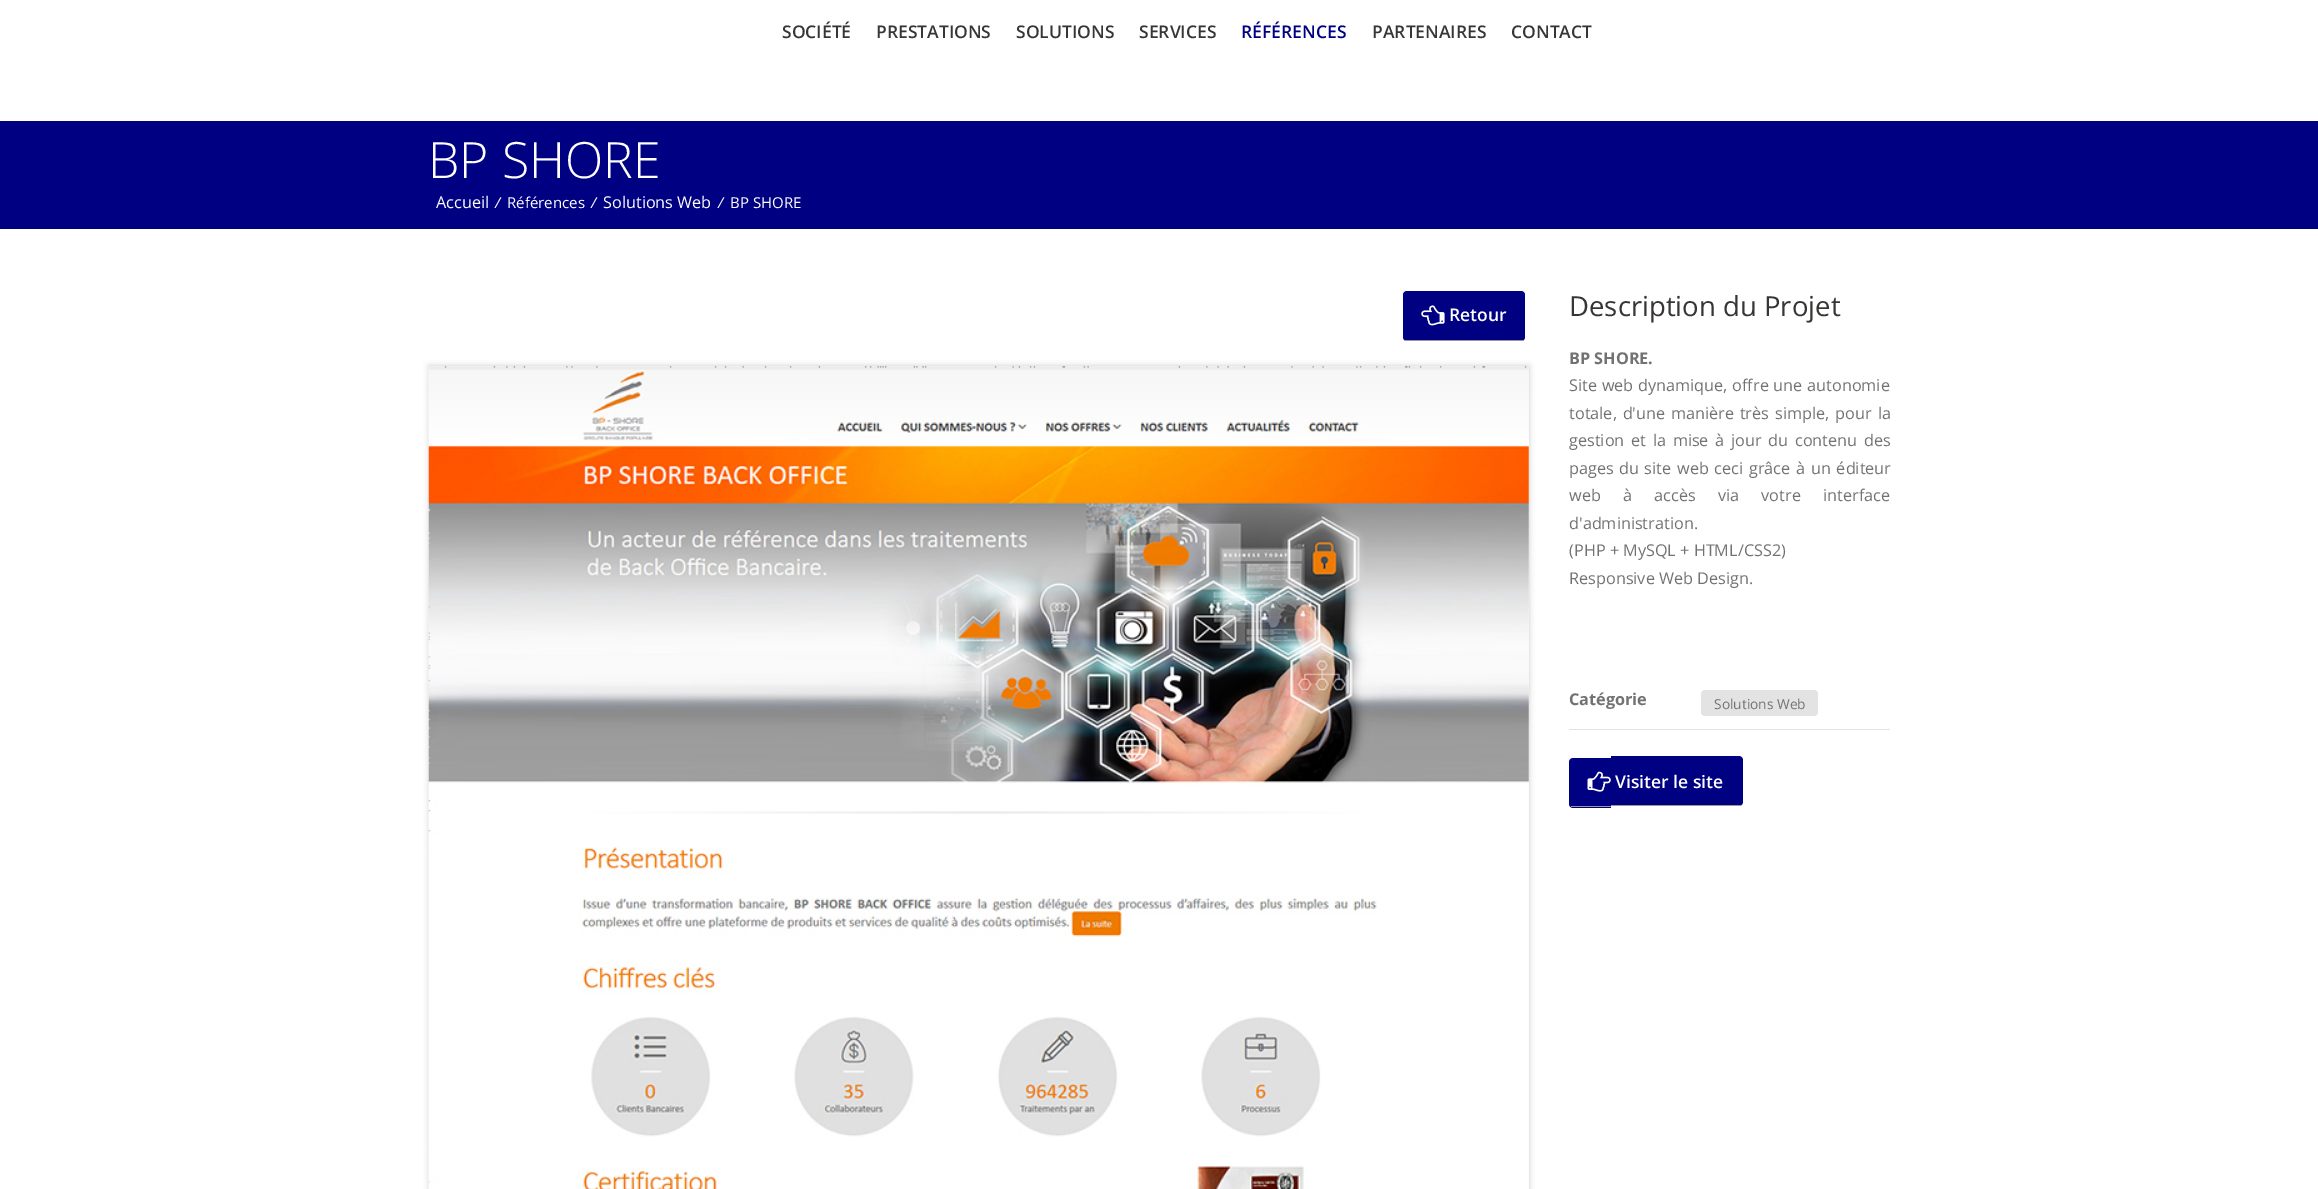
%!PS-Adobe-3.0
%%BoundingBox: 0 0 2318 1189
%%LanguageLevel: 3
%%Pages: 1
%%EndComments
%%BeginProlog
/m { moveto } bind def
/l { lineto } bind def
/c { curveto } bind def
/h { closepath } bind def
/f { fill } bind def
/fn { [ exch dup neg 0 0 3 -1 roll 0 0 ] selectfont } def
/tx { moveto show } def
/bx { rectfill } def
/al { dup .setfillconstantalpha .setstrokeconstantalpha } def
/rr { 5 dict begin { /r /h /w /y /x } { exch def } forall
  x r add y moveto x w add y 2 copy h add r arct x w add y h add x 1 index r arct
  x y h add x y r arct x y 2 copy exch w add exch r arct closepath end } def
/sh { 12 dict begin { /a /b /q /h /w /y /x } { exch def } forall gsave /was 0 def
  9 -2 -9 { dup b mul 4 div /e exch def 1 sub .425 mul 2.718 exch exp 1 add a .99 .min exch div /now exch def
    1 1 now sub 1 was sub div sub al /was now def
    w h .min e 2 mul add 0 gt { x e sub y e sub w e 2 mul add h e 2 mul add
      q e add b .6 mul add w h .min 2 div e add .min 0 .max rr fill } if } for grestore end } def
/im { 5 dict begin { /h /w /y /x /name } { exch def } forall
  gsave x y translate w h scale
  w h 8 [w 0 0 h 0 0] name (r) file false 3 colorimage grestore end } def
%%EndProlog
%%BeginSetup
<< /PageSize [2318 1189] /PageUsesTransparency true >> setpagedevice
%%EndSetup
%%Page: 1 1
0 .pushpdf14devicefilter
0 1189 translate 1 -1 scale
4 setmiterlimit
1 setgray
0 0 2318 1189 bx
/OpenSans-SemiBold 17.5 fn
0.22 0.212 0.204 setrgbcolor
(SOCIÉTÉ) 782 38 tx
(PRESTATIONS) 876 38 tx
(SOLUTIONS) 1016 38 tx
(SERVICES) 1139 38 tx
0 0 0.51 setrgbcolor
(RÉFÉRENCES) 1241 38 tx
0.22 0.212 0.204 setrgbcolor
(PARTENAIRES) 1372 38 tx
(CONTACT) 1511 38 tx
0 0 0.51 setrgbcolor
0 121 2318 108 bx
/OpenSans-Light 50 fn
1 setgray
(BP SHORE) 428 178 tx
/OpenSans-Regular 16.25 fn
(Accueil) 436 208 tx
/OpenSans-Italic 15 fn
(/) 495 208 tx
/OpenSans-Regular 15 fn
(Références) 507 208 tx
/OpenSans-Italic 15 fn
(/) 591 208 tx
/OpenSans-Regular 16.25 fn
(Solutions Web) 603 208 tx
/OpenSans-Italic 15 fn
(/) 718 208 tx
/OpenSans-Regular 15 fn
(BP SHORE) 730 208 tx
0 0 0.51 setrgbcolor
1403 291 122 50 4 rr f
0.6 setgray
1405 340 119 1 bx
(image0.raw) 1421 305 24 21 im
/OpenSans-SemiBold 17.5 fn
1 setgray
(Retour) 1449 321 tx
0 setgray
429 366 1100 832 0 3 0.2 sh
(image1.raw) 428 366 1101 823 im
/OpenSans-Regular 27.5 fn
0.22 0.212 0.204 setrgbcolor
(Description du Projet) 1569 316 tx
/OpenSans-Bold 16.25 fn
0.447 setgray
(BP SHORE.) 1569 364 tx
/OpenSans-Regular 16.25 fn
1569 391 m 0.5 0 32 (Site web dynamique, offre une autonomie) widthshow
1569 419 m 1.5 0 32 (totale, d'une manière très) widthshow
1775 419 m 2 0 32 (simple, pour la) widthshow
1569 446 m 2.5 0 32 (gestion et la mise à jour du contenu des) widthshow
1569 474 m 1 0 32 (pages du site) widthshow
1677 474 m 1.5 0 32 (web ceci grâce à un éditeur) widthshow
1569 501 m 18 0 32 (web à accès via votre interface) widthshow
(d'administration.) 1569 529 tx
(\(PHP + MySQL + HTML/CSS2\)) 1569 556 tx
(Responsive Web Design.) 1569 584 tx
0.89 setgray
1569 729 321 1 bx
/OpenSans-Bold 16.25 fn
0.447 setgray
(Catégorie) 1569 705 tx
0.89 setgray
1701 690 117 26 4 rr f
/OpenSans-Regular 13.75 fn
0.447 setgray
(Solutions Web) 1714 709 tx
0 0 0.51 setrgbcolor
1573 758 m 1611 758 l 1611 808 l 1573 808 l 1571 808 1569 806 1569 804 c 1569 762 l 1569 760 1571 758 1573 758 c h f
0.6 setgray
1571 806 40 1 bx
0 0 0.51 setrgbcolor
1611 756 m 1739 756 l 1741 756 1743 758 1743 760 c 1743 802 l 1743 804 1741 806 1739 806 c 1611 806 l h f
0.6 setgray
1611 805 130 1 bx
(image2.raw) 1587 771 24 21 im
/OpenSans-SemiBold 17.5 fn
1 setgray
(Visiter le site) 1615 788 tx
.poppdf14devicefilter showpage
%%EOF
